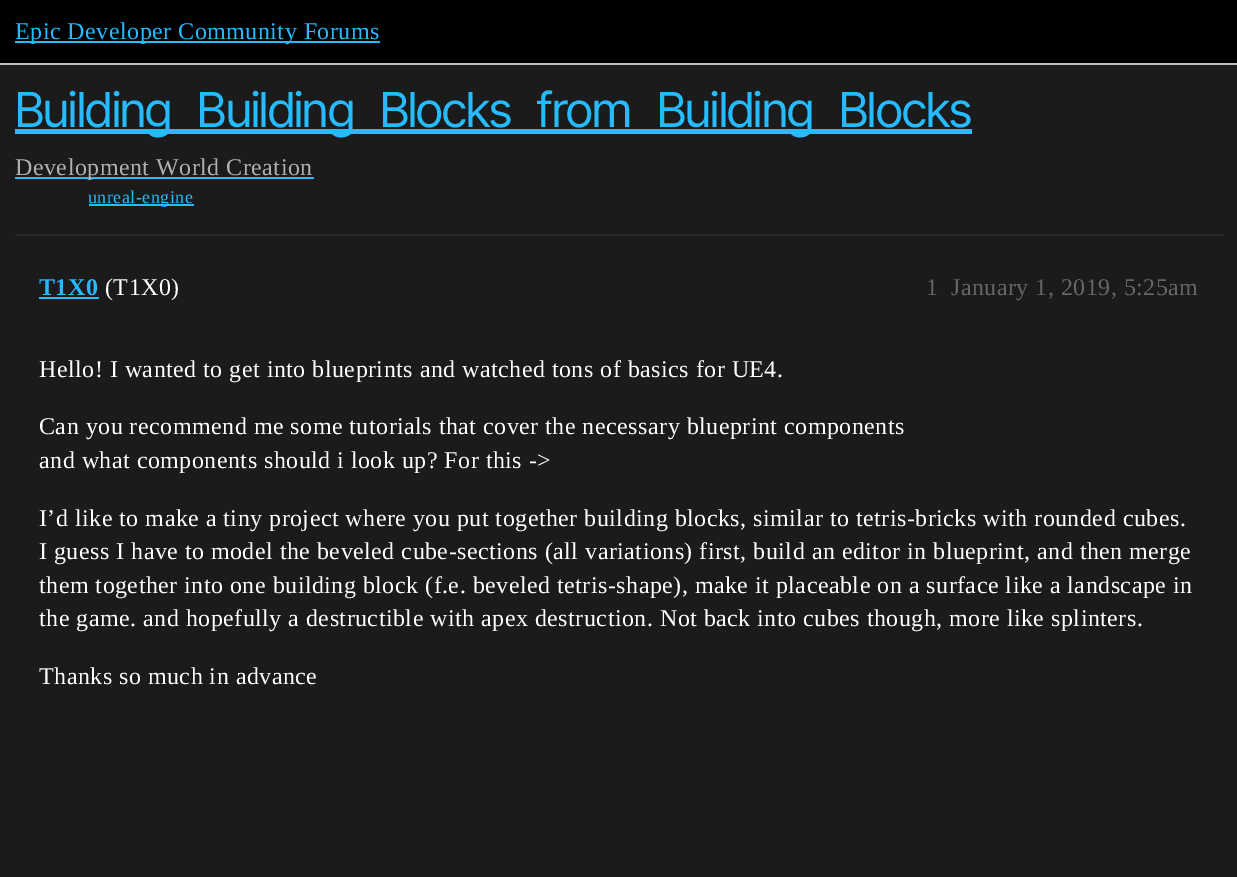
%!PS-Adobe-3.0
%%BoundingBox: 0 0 1237 877
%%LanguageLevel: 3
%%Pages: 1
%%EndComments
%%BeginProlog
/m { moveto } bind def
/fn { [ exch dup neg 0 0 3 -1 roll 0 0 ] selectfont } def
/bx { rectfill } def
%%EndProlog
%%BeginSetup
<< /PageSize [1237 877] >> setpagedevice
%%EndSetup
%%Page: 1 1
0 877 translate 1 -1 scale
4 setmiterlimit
0.106 setgray
0 0 1237 877 bx
0 setgray
0 0 1237 63 bx
0.741 setgray
0 63 1237 2 bx
0.149 0.733 1 setrgbcolor
15 41 365 2 bx
/LiberationSerif-Regular 24 fn
15 39 m 0.48 0 (Epic Developer Community Forums) ashow
15 129 957 5 bx
/InterTight-Regular 48.25 fn
15 127 m 15 0 32 -0.75 0 (Building Building Blocks from Building Blocks) awidthshow
15 177 299 2 bx
/LiberationSerif-Regular 24 fn
0.686 0.69 0.69 setrgbcolor
15 175 m 0.48 0 (Development) ashow
156 175 m 0.48 0 (World Creation) ashow
0.149 0.733 1 setrgbcolor
89 204 105 2 bx
/LiberationSerif-Regular 18 fn
88 203 m 0.48 0 (unreal-engine) ashow
0.157 0.157 0.173 setrgbcolor
15 234 1208 2 bx
/LiberationSerif-Bold 24 fn
0.149 0.733 1 setrgbcolor
39 295 m 0.48 0 (T1X0) ashow
39 297 60 2 bx
/LiberationSerif-Regular 24 fn
1 setgray
105 295 m 0.48 0 (\(T1X0\)) ashow
0.4 setgray
926 295 m 0.48 0 (1) ashow
951 295 m 0.48 0 (January 1, 2019, 5:25am) ashow
1 setgray
39 377 m 0.48 0 (Hello! I wanted to get into blueprints and watched tons of basics for UE4.) ashow
39 434 m 0.48 0 (Can you recommend me some tutorials that cover the necessary blueprint components) ashow
39 468 m 0.48 0 (and what components should i look up? For this ->) ashow
39 526 m 0.48 0 (I’d like to make a tiny project where you put together building blocks, similar to tetris-bricks with rounded cubes.) ashow
39 559 m 0.48 0 (I guess I have to model the beveled cube-sections \(all variations\) first, build an editor in blueprint, and then merge) ashow
39 593 m 0.48 0 (them together into one building block \(f.e. beveled tetris-shape\), make it placeable on a surface like a landscape in) ashow
39 626 m 0.48 0 (the game. and hopefully a destructible with apex destruction. Not back into cubes though, more like splinters.) ashow
39 684 m 0.48 0 (Thanks so much in advance) ashow
showpage
%%EOF
